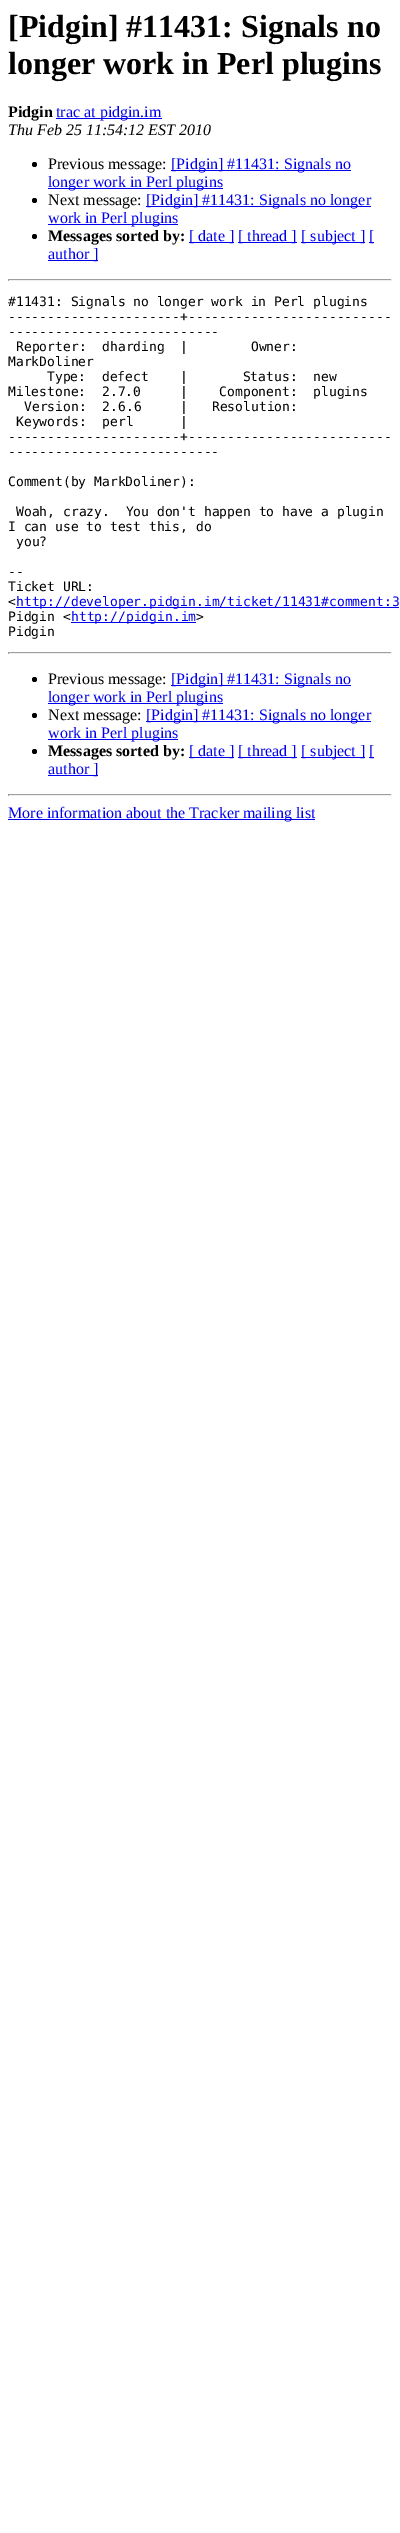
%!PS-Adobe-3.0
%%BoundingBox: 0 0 400 2533
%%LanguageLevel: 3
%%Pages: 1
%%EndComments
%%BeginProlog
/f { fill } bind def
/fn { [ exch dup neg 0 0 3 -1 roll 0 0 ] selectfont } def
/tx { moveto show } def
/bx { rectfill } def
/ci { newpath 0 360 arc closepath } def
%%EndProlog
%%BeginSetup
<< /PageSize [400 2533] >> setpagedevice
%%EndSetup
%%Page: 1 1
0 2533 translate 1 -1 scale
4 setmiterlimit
1 setgray
0 0 400 2533 bx
/LiberationSerif-Bold 32 fn
0 setgray
([Pidgin] #11431: Signals no) 8 37 tx
(longer work in Perl plugins) 8 74 tx
/LiberationSerif-Bold 16 fn
(Pidgin) 8 117 tx
0 0 0.933 setrgbcolor
56 118 106 1 bx
/LiberationSerif-Regular 16 fn
(trac at pidgin.im) 56 117 tx
/LiberationSerif-Italic 16 fn
0 setgray
(Thu Feb 25 11:54:12 EST 2010) 8 135 tx
34.5 164.5 2.5 ci f
/LiberationSerif-Regular 16 fn
(Previous message:) 48 169 tx
0 0 0.933 setrgbcolor
171 170 180 1 bx
([Pidgin] #11431: Signals no) 171 169 tx
48 188 175 1 bx
(longer work in Perl plugins) 48 187 tx
0 setgray
34.5 200.5 2.5 ci f
(Next message:) 48 205 tx
0 0 0.933 setrgbcolor
146 206 225 1 bx
([Pidgin] #11431: Signals no longer) 146 205 tx
48 224 130 1 bx
(work in Perl plugins) 48 223 tx
0 setgray
34.5 236.5 2.5 ci f
/LiberationSerif-Bold 16 fn
(Messages sorted by:) 48 241 tx
0 0 0.933 setrgbcolor
189 242 45 1 bx
/LiberationSerif-Regular 16 fn
([ date ]) 189 241 tx
238 242 59 1 bx
([ thread ]) 238 241 tx
301 242 64 1 bx
([ subject ]) 301 241 tx
369 242 5 1 bx
([) 369 241 tx
48 260 50 1 bx
(author ]) 48 259 tx
0.624 setgray
8 279 384 1 bx
0.933 setgray
391 279 1 2 bx
8 280 384 1 bx
0.624 setgray
8 279 1 2 bx
/DejaVuSansMono-Regular 13 fn
0 setgray
(#11431: Signals no longer work in Perl plugins) 8 306 tx
(----------------------+--------------------------) 8 321 tx
(---------------------------) 8 336 tx
(Reporter:  dharding  |        Owner:) 16 351 tx
(MarkDoliner) 8 366 tx
(Type:  defect    |       Status:  new) 47 381 tx
(Milestone:  2.7.0     |    Component:  plugins) 8 396 tx
(Version:  2.6.6     |   Resolution:) 24 411 tx
(Keywords:  perl      |) 16 426 tx
(----------------------+--------------------------) 8 441 tx
(---------------------------) 8 456 tx
(Comment\(by MarkDoliner\):) 8 486 tx
(Woah, crazy.  You don't happen to have a plugin) 16 516 tx
(I can use to test this, do) 8 531 tx
(you?) 16 546 tx
(--) 8 576 tx
(Ticket URL:) 8 591 tx
(<) 8 606 tx
0 0 0.933 setrgbcolor
16 607 383 1 bx
(http://developer.pidgin.im/ticket/11431#comment:3) 16 606 tx
0 setgray
(Pidgin <) 8 621 tx
0 0 0.933 setrgbcolor
71 622 125 1 bx
(http://pidgin.im) 71 621 tx
0 setgray
(>) 196 621 tx
(Pidgin) 8 636 tx
0.624 setgray
8 652 384 1 bx
0.933 setgray
391 652 1 2 bx
8 653 384 1 bx
0.624 setgray
8 652 1 2 bx
0 setgray
34.5 679.5 2.5 ci f
/LiberationSerif-Regular 16 fn
(Previous message:) 48 684 tx
0 0 0.933 setrgbcolor
171 685 180 1 bx
([Pidgin] #11431: Signals no) 171 684 tx
48 703 175 1 bx
(longer work in Perl plugins) 48 702 tx
0 setgray
34.5 715.5 2.5 ci f
(Next message:) 48 720 tx
0 0 0.933 setrgbcolor
146 721 225 1 bx
([Pidgin] #11431: Signals no longer) 146 720 tx
48 739 130 1 bx
(work in Perl plugins) 48 738 tx
0 setgray
34.5 751.5 2.5 ci f
/LiberationSerif-Bold 16 fn
(Messages sorted by:) 48 756 tx
0 0 0.933 setrgbcolor
189 757 45 1 bx
/LiberationSerif-Regular 16 fn
([ date ]) 189 756 tx
238 757 59 1 bx
([ thread ]) 238 756 tx
301 757 64 1 bx
([ subject ]) 301 756 tx
369 757 5 1 bx
([) 369 756 tx
48 775 50 1 bx
(author ]) 48 774 tx
0.624 setgray
8 794 384 1 bx
0.933 setgray
391 794 1 2 bx
8 795 384 1 bx
0.624 setgray
8 794 1 2 bx
0 0 0.933 setrgbcolor
8 819 307 1 bx
(More information about the Tracker mailing list) 8 818 tx
showpage
%%EOF
